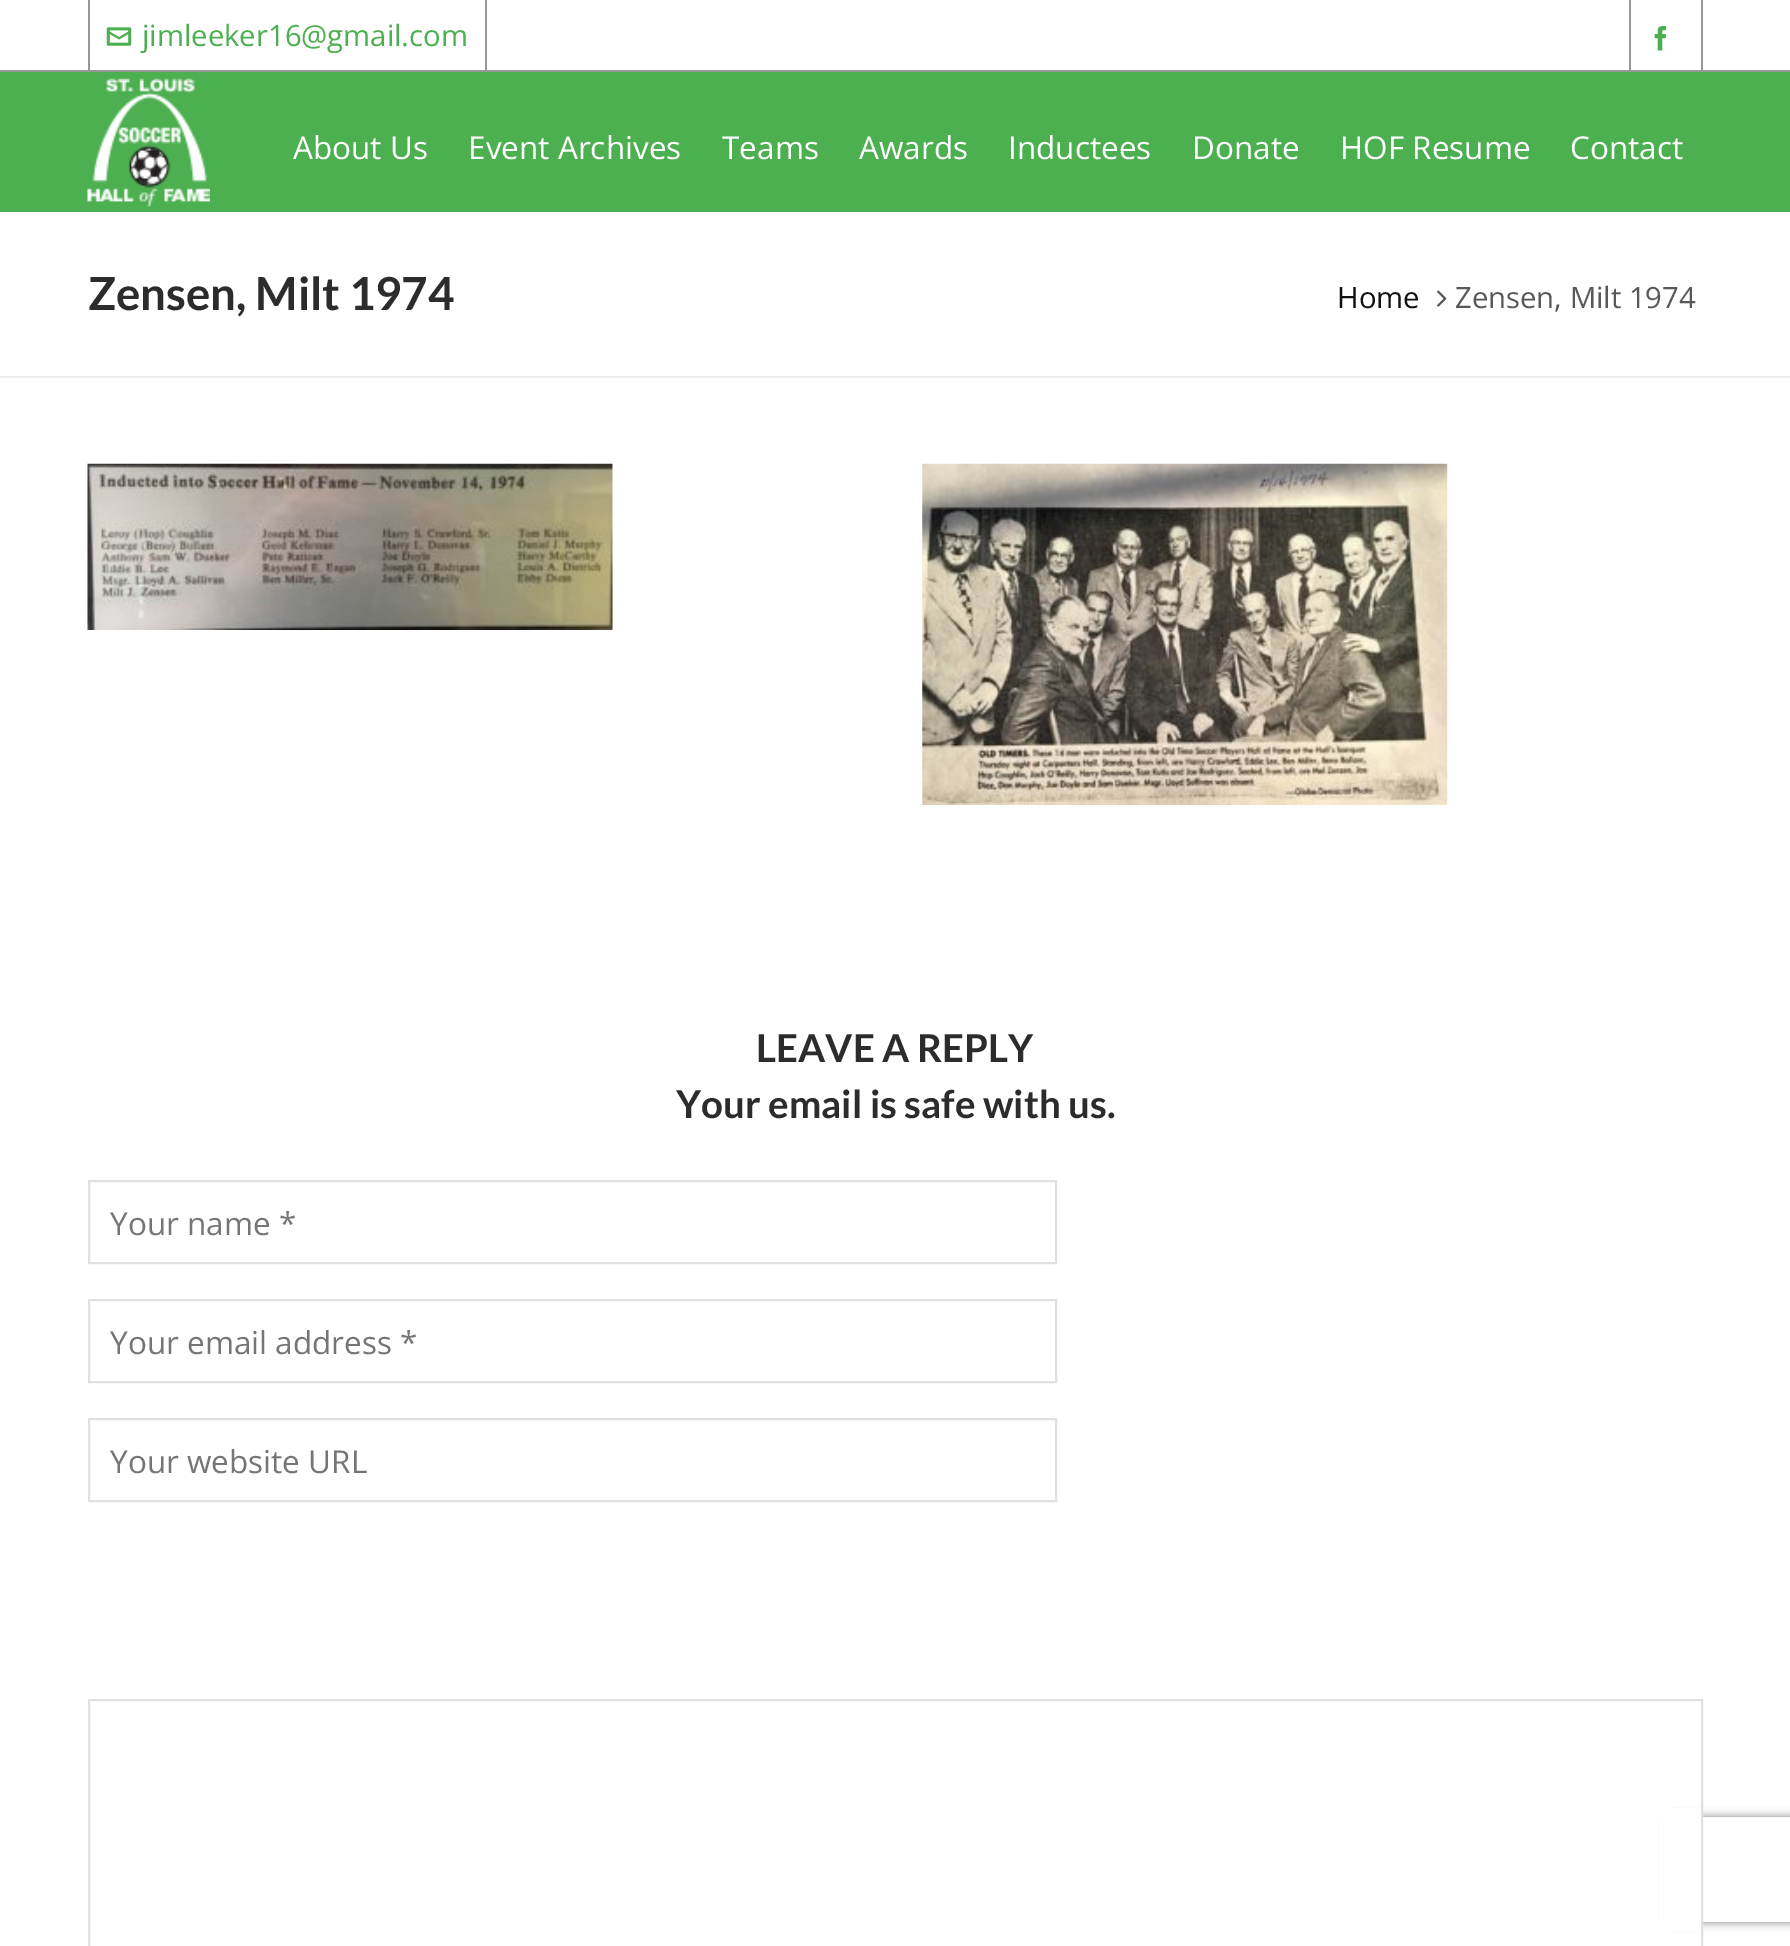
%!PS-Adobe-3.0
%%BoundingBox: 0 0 1790 1946
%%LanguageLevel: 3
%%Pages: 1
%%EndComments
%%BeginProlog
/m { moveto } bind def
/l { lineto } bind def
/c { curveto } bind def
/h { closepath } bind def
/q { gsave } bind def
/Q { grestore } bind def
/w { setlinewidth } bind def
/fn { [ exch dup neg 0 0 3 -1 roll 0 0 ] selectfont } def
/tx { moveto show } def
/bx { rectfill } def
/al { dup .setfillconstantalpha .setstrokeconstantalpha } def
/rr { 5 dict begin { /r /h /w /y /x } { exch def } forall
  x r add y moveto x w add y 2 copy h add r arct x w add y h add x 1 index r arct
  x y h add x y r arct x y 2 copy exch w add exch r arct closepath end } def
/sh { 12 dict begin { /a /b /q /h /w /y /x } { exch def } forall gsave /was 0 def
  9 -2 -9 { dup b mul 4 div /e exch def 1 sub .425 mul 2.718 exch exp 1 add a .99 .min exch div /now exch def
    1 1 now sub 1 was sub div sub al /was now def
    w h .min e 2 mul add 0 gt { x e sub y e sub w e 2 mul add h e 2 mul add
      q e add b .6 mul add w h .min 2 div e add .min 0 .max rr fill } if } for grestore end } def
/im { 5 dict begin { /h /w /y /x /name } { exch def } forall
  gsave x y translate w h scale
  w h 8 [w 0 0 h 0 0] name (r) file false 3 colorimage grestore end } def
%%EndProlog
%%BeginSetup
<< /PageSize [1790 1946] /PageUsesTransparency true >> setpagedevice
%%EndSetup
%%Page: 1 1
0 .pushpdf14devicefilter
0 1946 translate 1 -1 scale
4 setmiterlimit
1 setgray
0 0 1790 1946 bx
0.592 setgray
0 70 1790 2 bx
485 0 2 72 bx
88 0 2 72 bx
(image0.raw) 106 27 26 19 im
/OpenSans-Regular 29.25 fn
0.298 0.686 0.314 setrgbcolor
(jimleeker16@gmail.com) 142 46 tx
0.592 setgray
1701 0 2 72 bx
1629 0 2 72 bx
(image1.raw) 1654 26 13 25 im
0.298 0.686 0.314 setrgbcolor
0 72 1790 140 bx
(image2.raw) 87 78 123 129 im
/OpenSans-Regular 31.5 fn
1 setgray
(About Us) 293 159 tx
(Event Archives) 468 159 tx
(Teams) 722 159 tx
(Awards) 859 159 tx
(Inductees) 1008 159 tx
(Donate) 1192 159 tx
(HOF Resume) 1340 159 tx
(Contact) 1570 159 tx
0.922 setgray
0 376 1790 2 bx
/Lato-Bold 45.5 fn
0.173 setgray
(Zensen, Milt 1974) 88 310 tx
/OpenSans-Regular 29.25 fn
0.067 setgray
(Home) 1337 308 tx
(image3.raw) 1437 290 10 17 im
0.345 setgray
(Zensen, Milt 1974) 1455 308 tx
(image4.raw) 87 463 526 167 im
(image5.raw) 922 463 526 342 im
/Lato-Bold 38.5 fn
0.173 setgray
(LEAVE A REPLY) 756 1062 tx
(Your email is safe with us.) 676 1118 tx
0.878 setgray
2 w
89 1181 967 82 rectstroke
/OpenSans-Regular 31.5 fn
0.459 setgray
(Your name *) 110 1235 tx
0.878 setgray
89 1300 967 82 rectstroke
0.459 setgray
(Your email address *) 110 1354 tx
0.878 setgray
89 1419 967 82 rectstroke
0.459 setgray
(Your website URL) 110 1473 tx
q
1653 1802 m 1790 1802 l 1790 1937 l 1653 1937 l h 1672 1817 m 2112 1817 l 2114 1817 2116 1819 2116 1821 c 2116 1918 l 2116 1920 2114 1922 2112 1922 c 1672 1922 l 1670 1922 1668 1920 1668 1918 c 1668 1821 l 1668 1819 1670 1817 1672 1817 c h eoclip newpath
0.502 setgray
1668 1817 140 105 4 4.5 1 sh
Q
1 setgray
1659 1808 42 123 bx
0.878 setgray
89 1700 1613 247 rectstroke
.poppdf14devicefilter showpage
%%EOF
